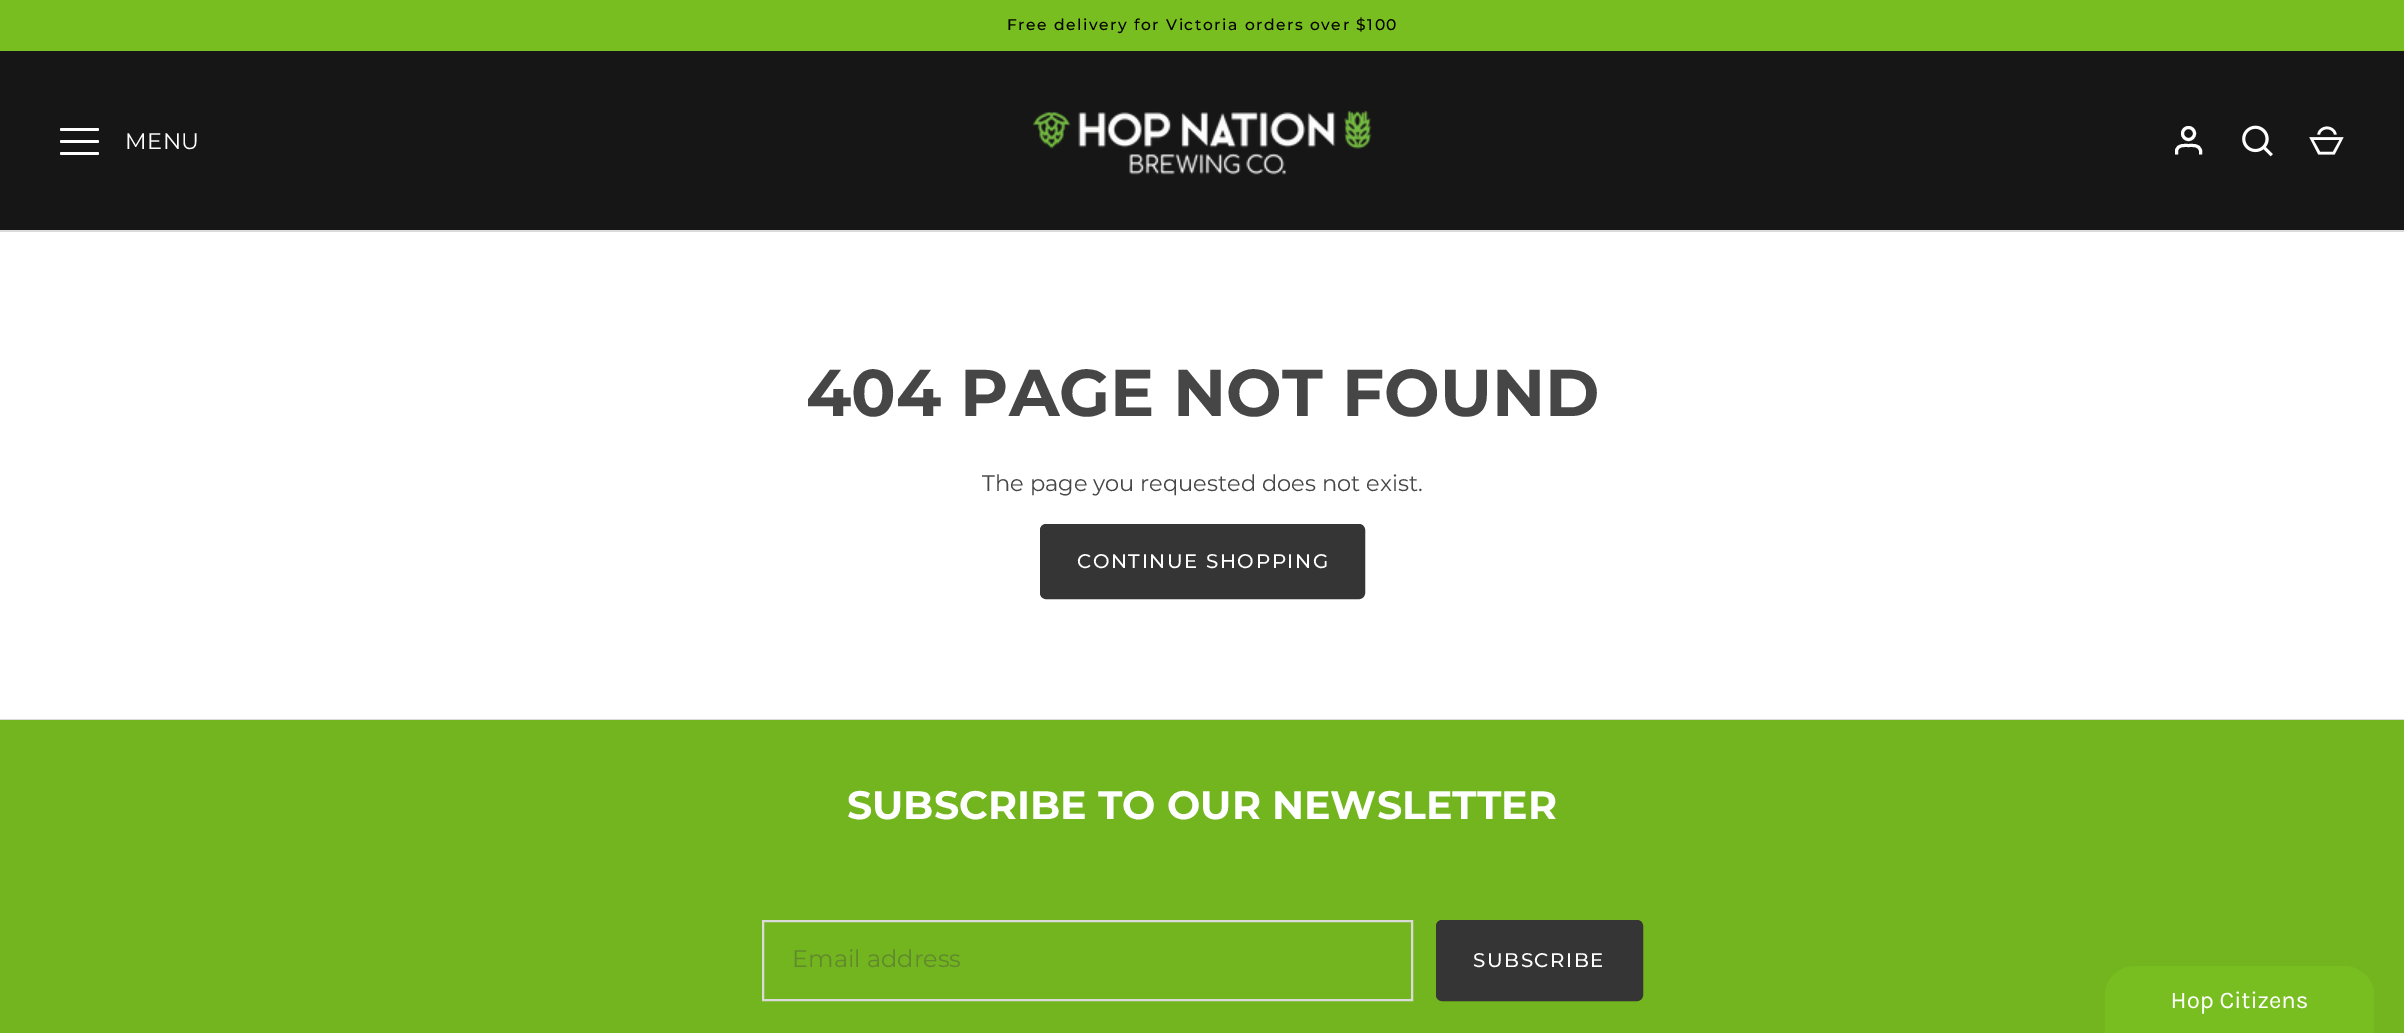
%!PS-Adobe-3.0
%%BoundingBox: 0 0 2404 1033
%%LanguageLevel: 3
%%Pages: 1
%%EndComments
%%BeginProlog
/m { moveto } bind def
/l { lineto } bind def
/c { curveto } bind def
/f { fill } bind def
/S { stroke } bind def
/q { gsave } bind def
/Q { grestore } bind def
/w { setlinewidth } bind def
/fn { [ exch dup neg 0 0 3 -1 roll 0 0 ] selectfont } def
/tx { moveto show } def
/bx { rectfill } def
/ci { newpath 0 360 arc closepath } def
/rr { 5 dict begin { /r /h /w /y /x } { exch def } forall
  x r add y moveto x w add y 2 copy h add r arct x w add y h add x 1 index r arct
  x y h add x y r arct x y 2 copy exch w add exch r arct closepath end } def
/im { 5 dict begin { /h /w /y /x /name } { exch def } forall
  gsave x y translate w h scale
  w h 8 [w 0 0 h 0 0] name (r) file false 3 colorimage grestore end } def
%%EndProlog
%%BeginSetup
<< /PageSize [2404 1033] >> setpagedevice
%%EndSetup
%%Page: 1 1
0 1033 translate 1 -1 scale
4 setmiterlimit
1 setgray
0 0 2404 1033 bx
0.471 0.745 0.125 setrgbcolor
0 0 2404 51 bx
/Montserrat-Medium 15.5 fn
0 setgray
1007 30 m 1.55 0 (Free delivery for Victoria orders over $100) ashow
0.086 setgray
0 51 2404 179 bx
0.855 setgray
0 230 2404 2 bx
1 setgray
60 128 39 3 1.5 rr f
60 140 39 3 1.5 rr f
60 152 39 3 1.5 rr f
/Montserrat-Regular 22.5 fn
125 149 m 0.5 0 (MENU) ashow
(image0.raw) 1032 110 340 65 im
3 w
2188.5 133.5 6 ci S
2200.5 154.5 m 2200.5 150.5 l 2199 144.5 2193 145.5 2188.5 145.5 c 2184 145.5 2178 144.5 2176.5 150.5 c 2176.5 154.5 l S
(image1.raw) 2242 125 31 32 im
(image2.raw) 2309 126 35 29 im
/Montserrat-Bold 66 fn
0.275 setgray
(404 PAGE NOT FOUND) 806 416 tx
/Montserrat-Regular 22.5 fn
(The page you requested does not exist.) 982 491 tx
0.204 0.208 0.204 setrgbcolor
1041 525 323 73 5 rr q f Q
2 w
S
/Montserrat-Medium 19.75 fn
1 setgray
1077 568 m 1.6 0 (CONTINUE SHOPPING) ashow
0.855 setgray
0 719 2404 1 bx
0.451 0.71 0.118 setrgbcolor
0 720 2404 313 bx
/Montserrat-Bold 39.6 fn
1 setgray
(SUBSCRIBE TO OUR NEWSLETTER) 847 819 tx
0.855 setgray
763 921 649 79 rectstroke
/Montserrat-Regular 24 fn
0.38 0.537 0.18 setrgbcolor
(Email address) 792 967 tx
0.204 0.208 0.204 setrgbcolor
1437 921 205 79 5 rr q f Q
S
/Montserrat-Medium 19.75 fn
1 setgray
1473 967 m 1.6 0 (SUBSCRIBE) ashow
(image3.raw) 2105 966 269 67 im
showpage
%%EOF
